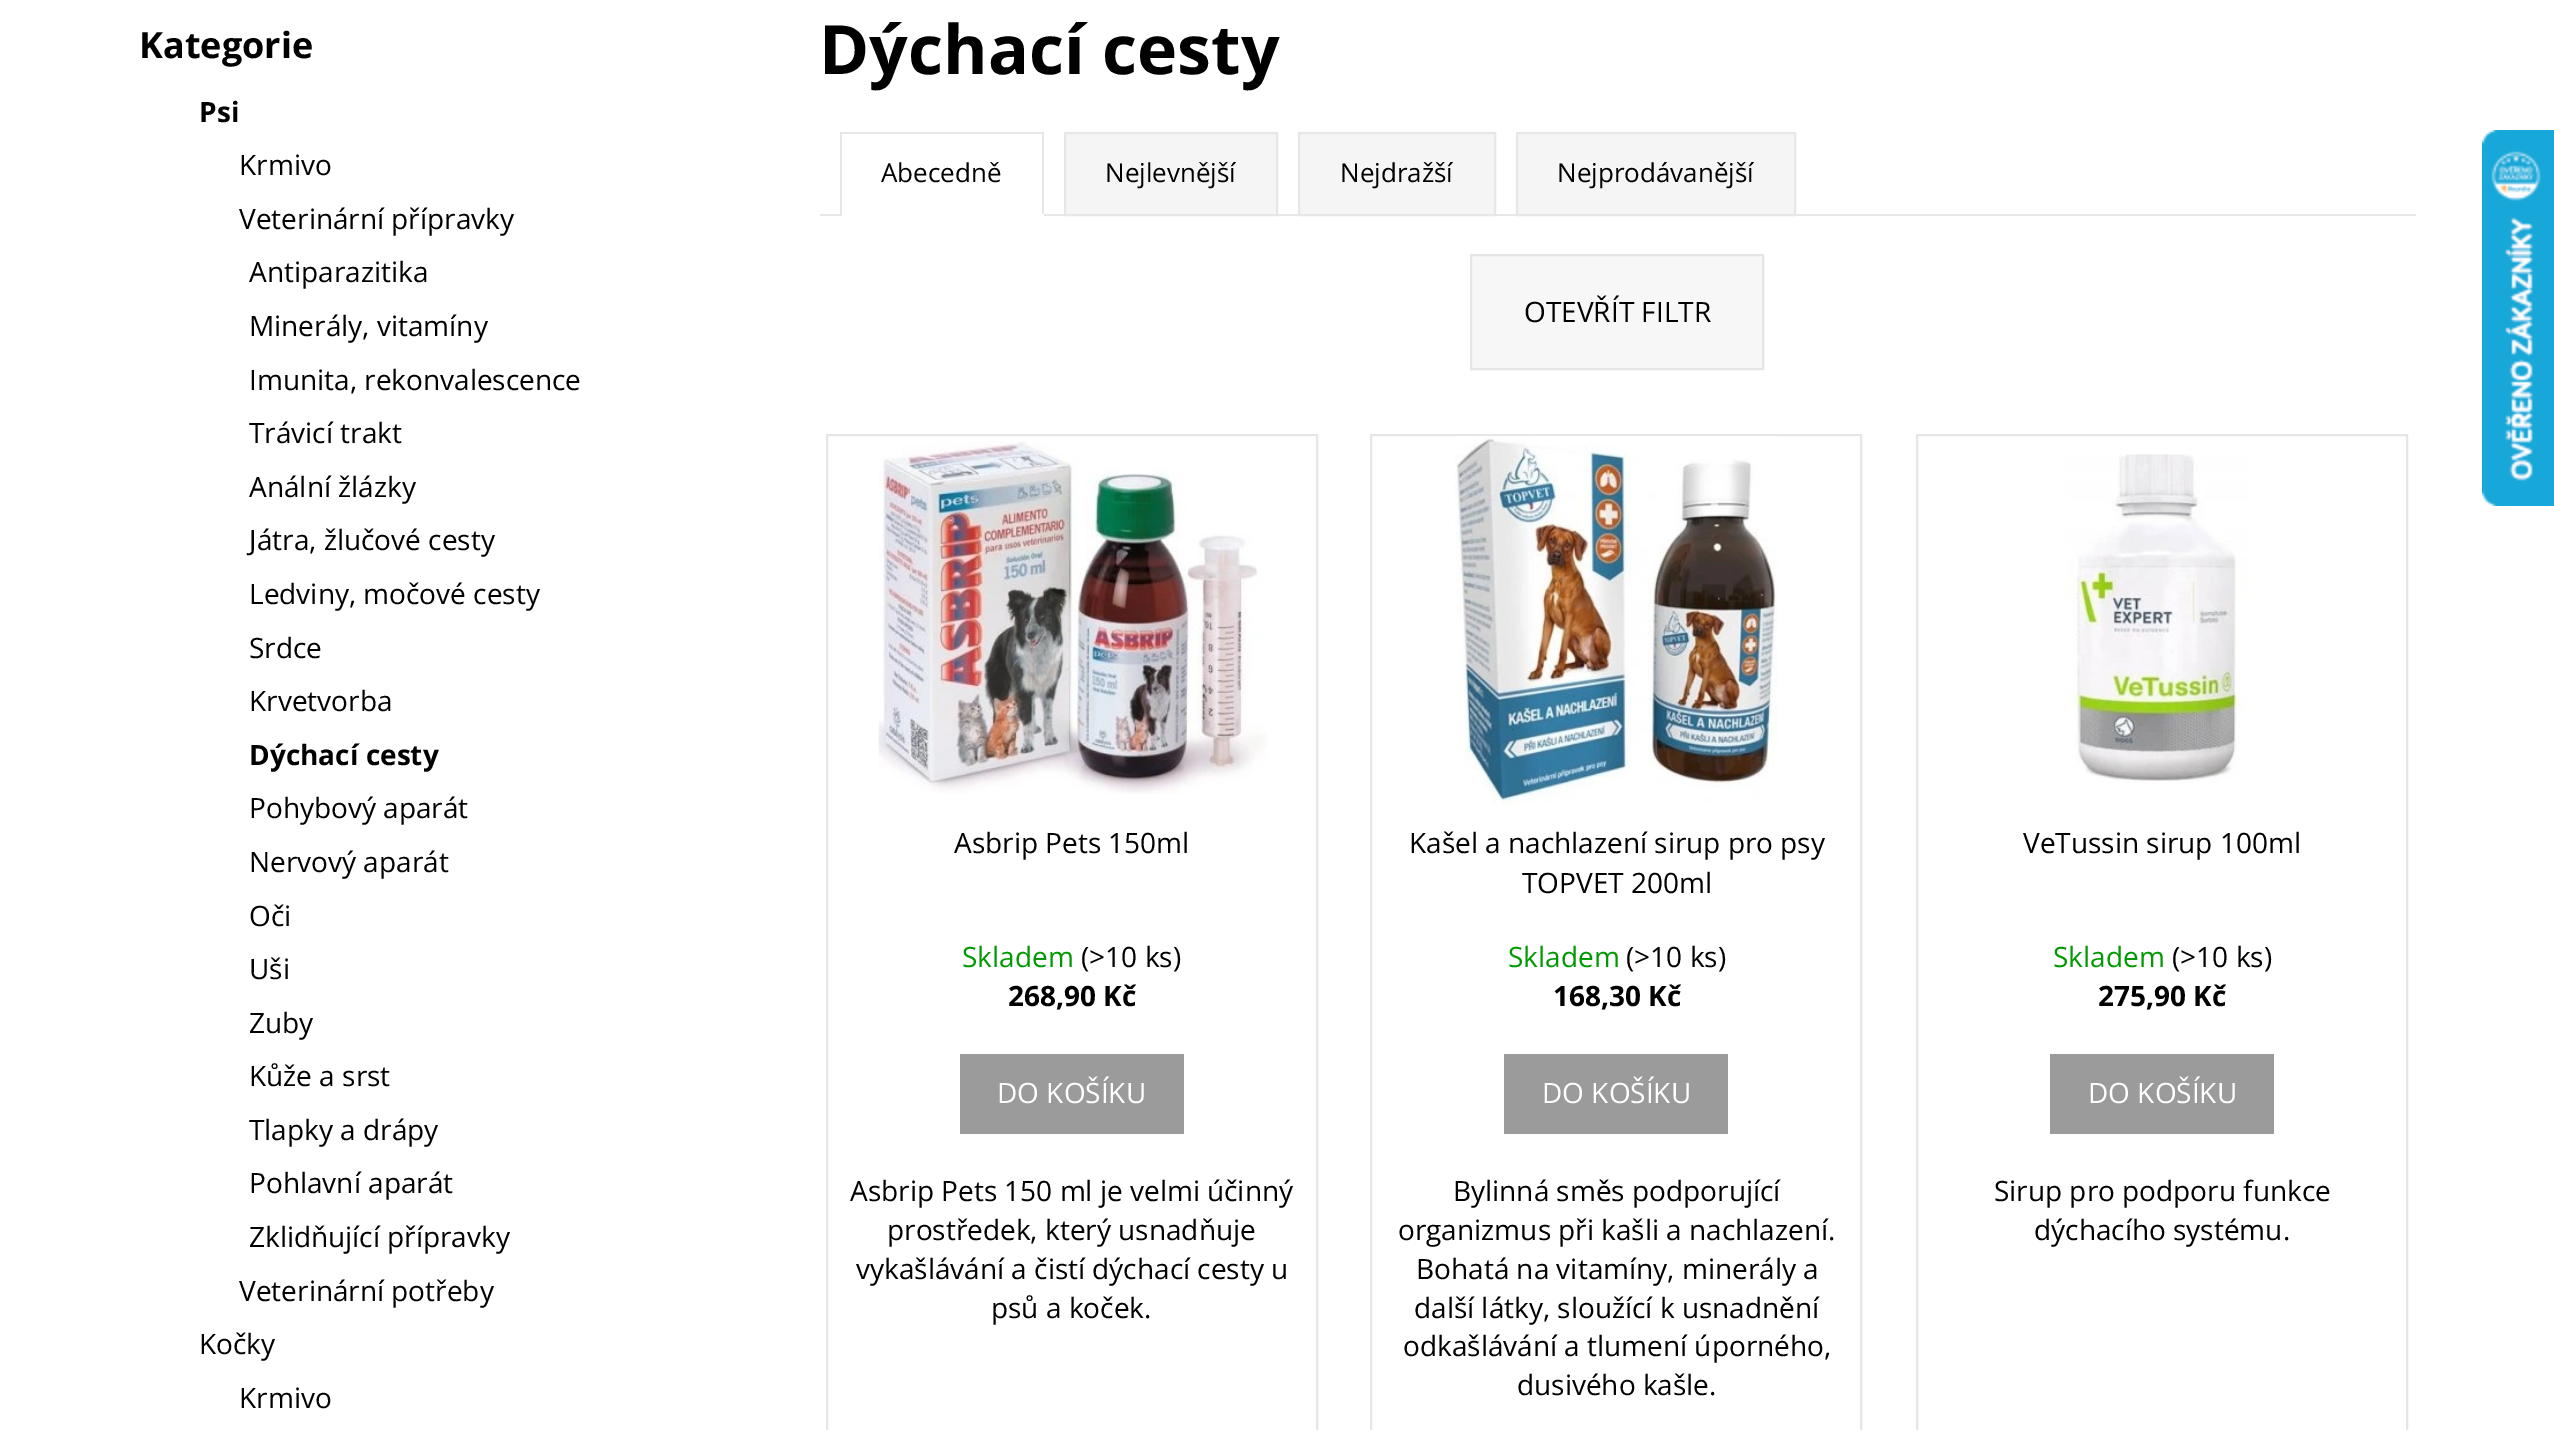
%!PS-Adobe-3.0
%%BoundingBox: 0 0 2554 1430
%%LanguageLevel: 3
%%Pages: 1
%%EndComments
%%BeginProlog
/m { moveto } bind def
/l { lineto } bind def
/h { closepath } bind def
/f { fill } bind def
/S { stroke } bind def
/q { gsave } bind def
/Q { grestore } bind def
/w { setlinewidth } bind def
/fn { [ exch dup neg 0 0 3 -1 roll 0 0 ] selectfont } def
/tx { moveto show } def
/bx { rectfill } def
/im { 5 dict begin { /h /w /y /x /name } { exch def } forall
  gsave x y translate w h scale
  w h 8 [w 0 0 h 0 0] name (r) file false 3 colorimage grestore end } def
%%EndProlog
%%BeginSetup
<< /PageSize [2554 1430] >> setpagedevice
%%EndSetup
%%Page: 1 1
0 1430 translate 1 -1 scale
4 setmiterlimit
1 setgray
0 0 2554 1430 bx
/OpenSans-Bold 36 fn
0 setgray
(Kategorie) 139 58 tx
/OpenSans-Bold 28 fn
(Psi) 199 122 tx
/OpenSans-Regular 28 fn
(Krmivo) 239 175 tx
(Veterinární přípravky) 239 229 tx
(Antiparazitika) 249 282 tx
(Minerály, vitamíny) 249 336 tx
(Imunita, rekonvalescence) 249 390 tx
(Trávicí trakt) 249 443 tx
(Anální žlázky) 249 497 tx
(Játra, žlučové cesty) 249 550 tx
(Ledviny, močové cesty) 249 604 tx
(Srdce) 249 658 tx
(Krvetvorba) 249 711 tx
/OpenSans-Bold 28 fn
(Dýchací cesty) 249 765 tx
/OpenSans-Regular 28 fn
(Pohybový aparát) 249 818 tx
(Nervový aparát) 249 872 tx
(Oči) 249 926 tx
(Uši) 249 979 tx
(Zuby) 249 1033 tx
(Kůže a srst) 249 1086 tx
(Tlapky a drápy) 249 1140 tx
(Pohlavní aparát) 249 1193 tx
(Zklidňující přípravky) 249 1247 tx
(Veterinární potřeby) 239 1301 tx
(Kočky) 199 1354 tx
(Krmivo) 239 1408 tx
/OpenSans-Bold 68 fn
(Dýchací cesty) 819 74 tx
0.906 setgray
820 214 1596 2 bx
840 132 204 2 bx
1042 132 2 84 bx
1 setgray
840 214 204 2 bx
0.906 setgray
840 132 2 84 bx
/OpenSans-Regular 26 fn
0 setgray
(Abecedně) 881 182 tx
0.961 setgray
1065 133 m 1277 133 l 1277 215 l 1065 215 l h q f Q
0.906 setgray
2 w
S
0 setgray
(Nejlevnější) 1105 182 tx
0.961 setgray
1299 133 m 1495 133 l 1495 215 l 1299 215 l h q f Q
0.906 setgray
S
0 setgray
(Nejdražší) 1340 182 tx
0.961 setgray
1517 133 m 1795 133 l 1795 215 l 1517 215 l h q f Q
0.906 setgray
S
0 setgray
(Nejprodávanější) 1557 182 tx
0.969 setgray
1471 255 m 1763 255 l 1763 369 l 1471 369 l h q f Q
0.902 setgray
S
/OpenSans-Regular 28 fn
0 setgray
(OTEVŘÍT FILTR) 1524 322 tx
0.902 setgray
827 435 490 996 rectstroke
(image0.raw) 878 441 390 353 im
0 setgray
(Asbrip Pets 150ml) 954 853 tx
0 0.6 0.004 setrgbcolor
(Skladem) 962 967 tx
0 setgray
(\(>10 ks\)) 1081 967 tx
/OpenSans-Bold 28 fn
(268,90 Kč) 1008 1006 tx
0.608 setgray
960 1054 224 80 bx
/OpenSans-Regular 28 fn
1 setgray
(DO KOŠÍKU) 997 1103 tx
0 setgray
(Asbrip Pets 150 ml je velmi účinný) 850 1201 tx
(prostředek, který usnadňuje) 887 1240 tx
(vykašlávání a čistí dýchací cesty u) 856 1279 tx
(psů a koček.) 991 1318 tx
0.902 setgray
1371 435 490 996 rectstroke
(image1.raw) 1455 436 323 368 im
0 setgray
(Kašel a nachlazení sirup pro psy) 1409 853 tx
(TOPVET 200ml) 1522 893 tx
0 0.6 0.004 setrgbcolor
(Skladem) 1508 967 tx
0 setgray
(\(>10 ks\)) 1626 967 tx
/OpenSans-Bold 28 fn
(168,30 Kč) 1553 1006 tx
0.608 setgray
1504 1054 224 80 bx
/OpenSans-Regular 28 fn
1 setgray
(DO KOŠÍKU) 1542 1103 tx
0 setgray
(Bylinná směs podporující) 1453 1201 tx
(organizmus při kašli a nachlazení.) 1398 1240 tx
(Bohatá na vitamíny, minerály a) 1416 1279 tx
(další látky, sloužící k usnadnění) 1414 1318 tx
(odkašlávání a tlumení úporného,) 1403 1356 tx
(dusivého kašle.) 1517 1395 tx
0.902 setgray
1917 435 490 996 rectstroke
(image2.raw) 2066 454 184 329 im
0 setgray
(VeTussin sirup 100ml) 2023 853 tx
0 0.6 0.004 setrgbcolor
(Skladem) 2053 967 tx
0 setgray
(\(>10 ks\)) 2172 967 tx
/OpenSans-Bold 28 fn
(275,90 Kč) 2098 1006 tx
0.608 setgray
2050 1054 224 80 bx
/OpenSans-Regular 28 fn
1 setgray
(DO KOŠÍKU) 2088 1103 tx
0 setgray
(Sirup pro podporu funkce) 1994 1201 tx
(dýchacího systému.) 2034 1240 tx
(image3.raw) 2482 130 72 376 im
showpage
%%EOF
